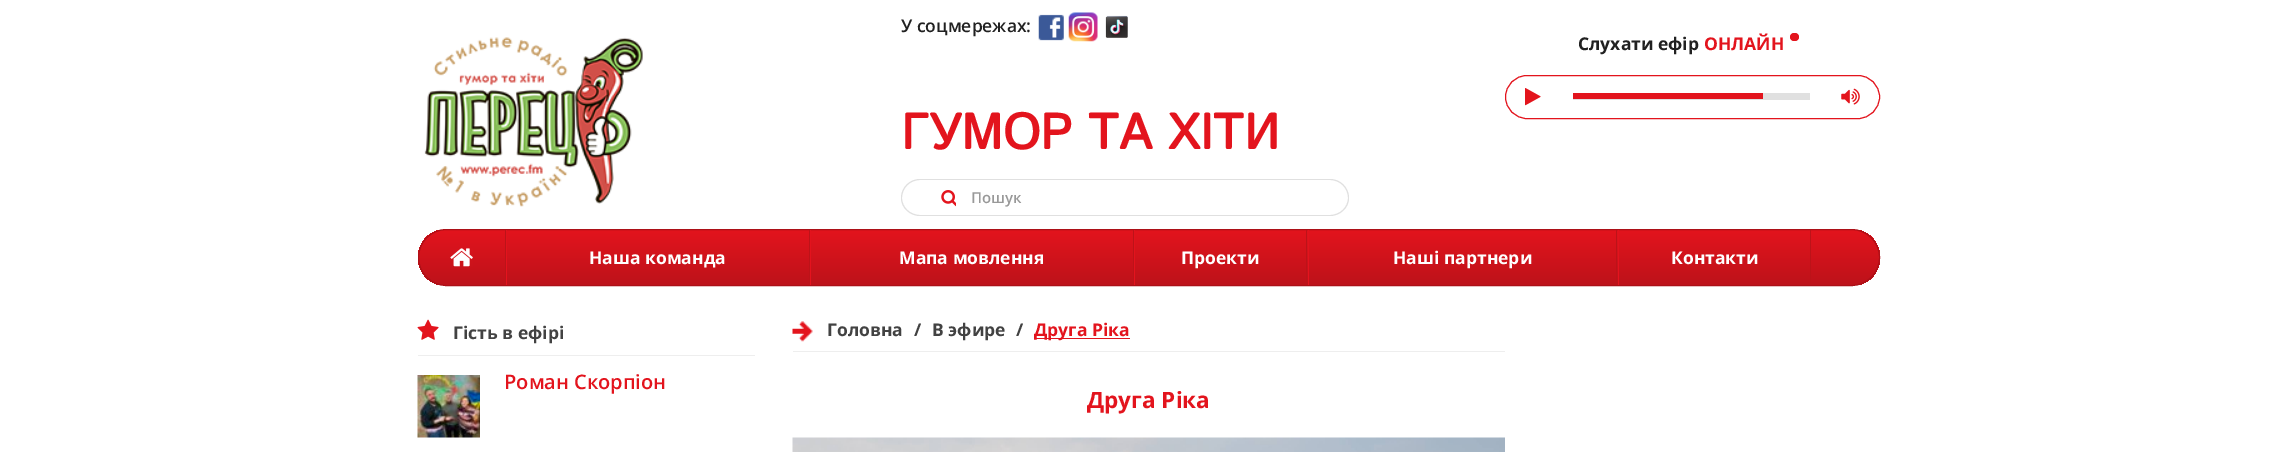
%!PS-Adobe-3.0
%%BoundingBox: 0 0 2296 452
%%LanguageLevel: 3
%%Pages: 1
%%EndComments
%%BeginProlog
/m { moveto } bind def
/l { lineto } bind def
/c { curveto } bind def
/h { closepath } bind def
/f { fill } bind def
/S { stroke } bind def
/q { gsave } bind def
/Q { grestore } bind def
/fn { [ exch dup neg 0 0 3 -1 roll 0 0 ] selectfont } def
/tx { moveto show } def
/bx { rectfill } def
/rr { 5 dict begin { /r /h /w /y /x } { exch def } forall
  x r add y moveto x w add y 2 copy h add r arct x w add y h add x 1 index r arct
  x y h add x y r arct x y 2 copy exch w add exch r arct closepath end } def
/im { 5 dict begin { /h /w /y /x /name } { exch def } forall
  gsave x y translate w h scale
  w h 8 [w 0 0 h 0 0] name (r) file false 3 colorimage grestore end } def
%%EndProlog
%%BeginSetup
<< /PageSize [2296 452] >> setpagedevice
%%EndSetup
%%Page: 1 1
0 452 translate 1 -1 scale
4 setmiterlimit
1 setgray
0 0 2296 452 bx
(image0.raw) 424 37 219 170 im
/OpenSans-SemiBold 17.5 fn
0.129 setgray
(У соцмережах:) 901 32 tx
(image1.raw) 1038 14 26 27 im
(image2.raw) 1068 12 30 30 im
(image3.raw) 1105 15 23 23 im
/IstokWeb-Bold 50 fn
0.89 0.078 0.114 setrgbcolor
(ГУМОР ТА ХІТИ) 901 149 tx
0.878 setgray
920 179 m 958 179 l 958 216 l 920 216 l 910 216 901 208 901 198 c 901 187 910 179 920 179 c h 920 180 m 958 180 l 958 215 l 920 215 l 910 215 902 207 902 198 c 902 188 910 180 920 180 c h eofill
(image4.raw) 941 190 15 17 im
1 setgray
956 179 m 1330.5 179 l 1340.5 179 1349 187.5 1349 197.5 c 1349 207.5 1340.5 216 1330.5 216 c 956 216 l h f
0.878 setgray
956 179 m 1330 179 l 1340 179 1349 187 1349 198 c 1349 208 1340 216 1330 216 c 956 216 l h 956 180 m 1330 180 l 1340 180 1348 188 1348 198 c 1348 207 1340 215 1330 215 c 956 215 l h eofill
/OpenSans-SemiBold 15 fn
0.6 setgray
(Пошук) 971 203 tx
/OpenSans-Bold 17.5 fn
0.129 setgray
(Слухати ефір) 1578 50 tx
0.89 0.078 0.114 setrgbcolor
(ОНЛАЙН) 1704 50 tx
1790 33 9 8 4 rr f
1505.5 75.5 374 43 21.5 rr S
(image5.raw) 1525 88 16 18 im
0.878 setgray
1573 93 237 7 bx
0.886 0.078 0.114 setrgbcolor
1573 93 190 6 bx
(image6.raw) 1841 88 19 17 im
q
418 229 1462 57 28.5 rr clip newpath
q 418 230 m 1880 230 l 1880 285 l 418 285 l h clip newpath
<< /ShadingType 2 /ColorSpace /DeviceRGB /Coords [1149 230 1149 285] /Extend [true true] /Function << /FunctionType 2 /Domain [0 1] /C0 [0.89 0.078 0.114] /C1 [0.741 0.071 0.102] /N 1 >> >> shfill Q
Q
0.675 0.063 0.09 setrgbcolor
418.5 229.5 1461 56 28 rr S
(image7.raw) 450 248 23 19 im
q 505 230 m 506 230 l 506 285 l 505 285 l h clip newpath
<< /ShadingType 2 /ColorSpace /DeviceRGB /Coords [506 230 506 285] /Extend [true true] /Function << /FunctionType 2 /Domain [0 1] /C0 [0.741 0.078 0.098] /C1 [0.737 0.075 0.102] /N 1 >> >> shfill Q
q 506 230 m 507 230 l 507 285 l 506 285 l h clip newpath
<< /ShadingType 2 /ColorSpace /DeviceRGB /Coords [507 230 507 285] /Extend [true true] /Function << /FunctionType 2 /Domain [0 1] /C0 [0.886 0.075 0.114] /C1 [0.902 0.078 0.122] /N 1 >> >> shfill Q
1 setgray
(Наша команда) 589 264 tx
q 809 230 m 810 230 l 810 285 l 809 285 l h clip newpath
<< /ShadingType 2 /ColorSpace /DeviceRGB /Coords [809 230 809 285] /Extend [true true] /Function << /FunctionType 2 /Domain [0 1] /C0 [0.741 0.078 0.098] /C1 [0.737 0.075 0.102] /N 1 >> >> shfill Q
q 810 230 m 811 230 l 811 285 l 810 285 l h clip newpath
<< /ShadingType 2 /ColorSpace /DeviceRGB /Coords [811 230 811 285] /Extend [true true] /Function << /FunctionType 2 /Domain [0 1] /C0 [0.886 0.075 0.114] /C1 [0.902 0.078 0.122] /N 1 >> >> shfill Q
(Мапа мовлення) 899 264 tx
q 1133 230 m 1134 230 l 1134 285 l 1133 285 l h clip newpath
<< /ShadingType 2 /ColorSpace /DeviceRGB /Coords [1133 230 1133 285] /Extend [true true] /Function << /FunctionType 2 /Domain [0 1] /C0 [0.741 0.078 0.098] /C1 [0.737 0.075 0.102] /N 1 >> >> shfill Q
q 1134 230 m 1135 230 l 1135 285 l 1134 285 l h clip newpath
<< /ShadingType 2 /ColorSpace /DeviceRGB /Coords [1134 230 1134 285] /Extend [true true] /Function << /FunctionType 2 /Domain [0 1] /C0 [0.886 0.075 0.114] /C1 [0.902 0.078 0.122] /N 1 >> >> shfill Q
(Проекти) 1181 264 tx
q 1306 230 m 1307 230 l 1307 285 l 1306 285 l h clip newpath
<< /ShadingType 2 /ColorSpace /DeviceRGB /Coords [1307 230 1307 285] /Extend [true true] /Function << /FunctionType 2 /Domain [0 1] /C0 [0.741 0.078 0.098] /C1 [0.737 0.075 0.102] /N 1 >> >> shfill Q
q 1308 230 m 1309 230 l 1309 285 l 1308 285 l h clip newpath
<< /ShadingType 2 /ColorSpace /DeviceRGB /Coords [1308 230 1308 285] /Extend [true true] /Function << /FunctionType 2 /Domain [0 1] /C0 [0.886 0.075 0.114] /C1 [0.902 0.078 0.122] /N 1 >> >> shfill Q
(Наші партнери) 1393 264 tx
q 1616 230 m 1617 230 l 1617 285 l 1616 285 l h clip newpath
<< /ShadingType 2 /ColorSpace /DeviceRGB /Coords [1617 230 1617 285] /Extend [true true] /Function << /FunctionType 2 /Domain [0 1] /C0 [0.741 0.078 0.098] /C1 [0.737 0.075 0.102] /N 1 >> >> shfill Q
q 1618 230 m 1619 230 l 1619 285 l 1618 285 l h clip newpath
<< /ShadingType 2 /ColorSpace /DeviceRGB /Coords [1618 230 1618 285] /Extend [true true] /Function << /FunctionType 2 /Domain [0 1] /C0 [0.886 0.075 0.114] /C1 [0.902 0.078 0.122] /N 1 >> >> shfill Q
(Контакти) 1671 264 tx
q 1810 230 m 1811 230 l 1811 285 l 1810 285 l h clip newpath
<< /ShadingType 2 /ColorSpace /DeviceRGB /Coords [1811 230 1811 285] /Extend [true true] /Function << /FunctionType 2 /Domain [0 1] /C0 [0.741 0.078 0.098] /C1 [0.737 0.075 0.102] /N 1 >> >> shfill Q
0.933 setgray
418 355 337 1 bx
(image8.raw) 417 319 22 21 im
0.259 setgray
(Гість в ефірі) 453 339 tx
(image9.raw) 417 375 63 63 im
/OpenSans-SemiBold 20 fn
0.89 0.078 0.114 setrgbcolor
(Роман Скорпіон) 504 389 tx
0.933 setgray
793 351 712 1 bx
(image10.raw) 792 321 21 21 im
/OpenSans-Bold 17.5 fn
0.259 setgray
(Головна) 827 336 tx
(/) 914 336 tx
(В эфире) 932 336 tx
(/) 1016 336 tx
0.89 0.078 0.114 setrgbcolor
1034 338 96 1 bx
(Друга Ріка) 1034 336 tx
/OpenSans-Bold 22.5 fn
(Друга Ріка) 1087 408 tx
(image11.raw) 792 437 713 15 im
showpage
%%EOF
